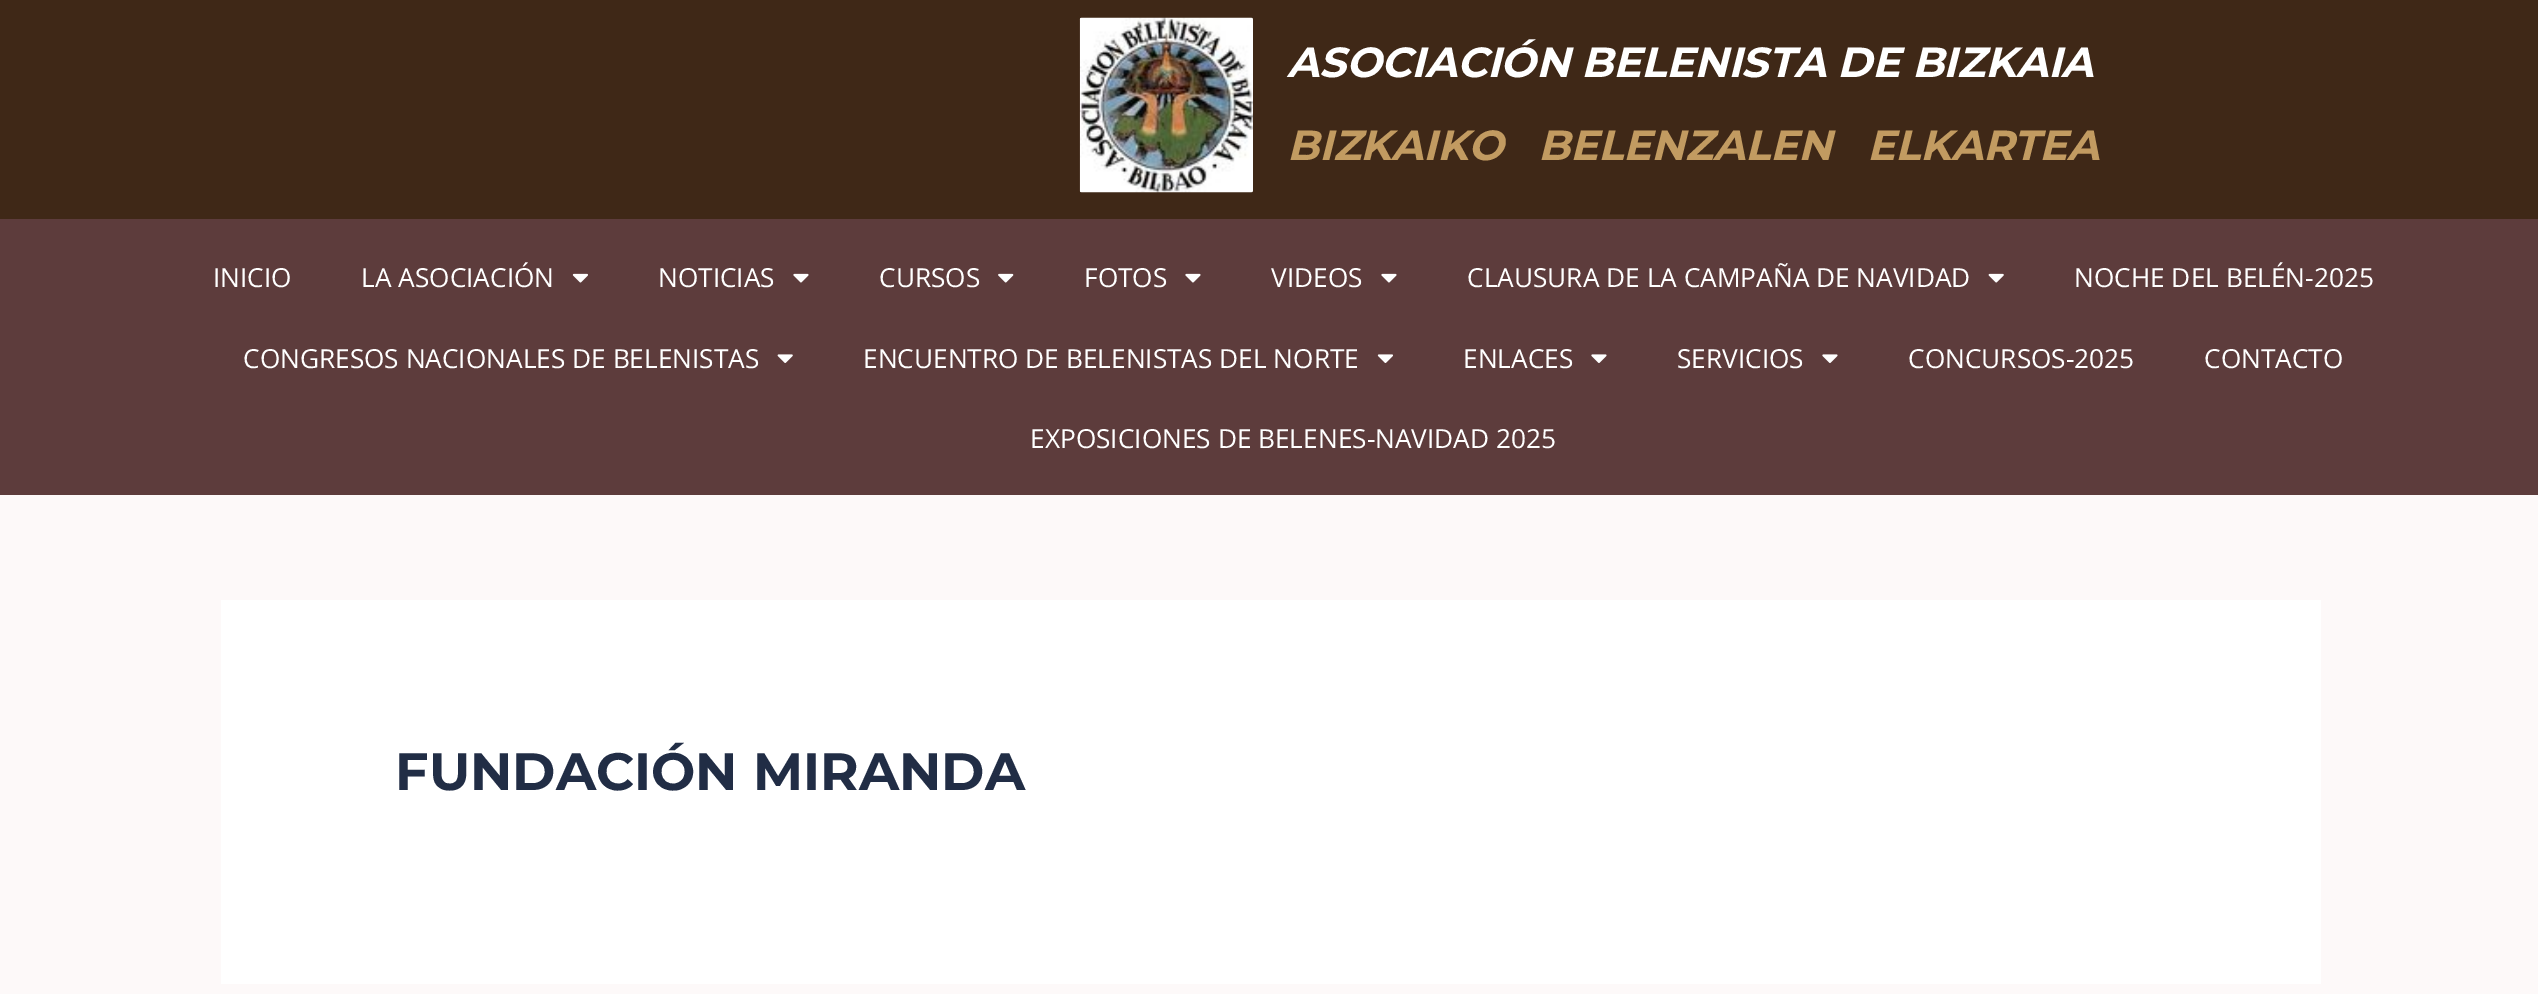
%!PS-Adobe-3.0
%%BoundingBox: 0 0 2538 994
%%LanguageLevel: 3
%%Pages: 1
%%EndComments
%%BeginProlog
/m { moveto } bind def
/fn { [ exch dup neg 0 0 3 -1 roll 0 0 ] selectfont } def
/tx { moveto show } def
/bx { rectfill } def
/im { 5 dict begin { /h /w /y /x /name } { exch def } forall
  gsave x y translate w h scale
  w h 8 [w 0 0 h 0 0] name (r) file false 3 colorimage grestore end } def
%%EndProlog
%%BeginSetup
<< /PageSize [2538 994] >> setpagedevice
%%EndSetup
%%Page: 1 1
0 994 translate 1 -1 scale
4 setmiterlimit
0.992 0.976 0.976 setrgbcolor
0 0 2538 994 bx
0.247 0.157 0.09 setrgbcolor
0 0 2538 219 bx
(image0.raw) 1079 17 174 176 im
/Montserrat-ThinItalic 42 fn
1 setgray
1287 77 m -0.2 0 (ASOCIACIÓN BELENISTA DE BIZKAIA) ashow
0.761 0.608 0.38 setrgbcolor
1287 160 m -0.2 0 (BIZKAIKO   BELENZALEN   ELKARTEA) ashow
0.365 0.235 0.235 setrgbcolor
0 219 2538 276 bx
/OpenSans-Regular 26.25 fn
1 setgray
(INICIO) 213 287 tx
(LA ASOCIACIÓN) 361 287 tx
(image1.raw) 572 273 16 10 im
(NOTICIAS) 658 287 tx
(image2.raw) 793 273 16 10 im
(CURSOS) 879 287 tx
(image3.raw) 998 273 16 10 im
(FOTOS) 1084 287 tx
(image2.raw) 1185 273 16 10 im
(VIDEOS) 1271 287 tx
(image2.raw) 1381 273 16 10 im
(CLAUSURA DE LA CAMPAÑA DE NAVIDAD) 1467 287 tx
(image4.raw) 1988 273 16 10 im
(NOCHE DEL BELÉN-2025) 2074 287 tx
(CONGRESOS NACIONALES DE BELENISTAS) 243 368 tx
(image5.raw) 777 354 16 9 im
(ENCUENTRO DE BELENISTAS DEL NORTE) 863 368 tx
(image6.raw) 1377 354 16 9 im
(ENLACES) 1463 368 tx
(image7.raw) 1591 354 16 9 im
(SERVICIOS) 1677 368 tx
(image7.raw) 1822 354 16 9 im
(CONCURSOS-2025) 1908 368 tx
(CONTACTO) 2204 368 tx
(EXPOSICIONES DE BELENES-NAVIDAD 2025) 1030 448 tx
221 600 2100 384 bx
/Montserrat-Thin 52.5 fn
0.129 0.176 0.271 setrgbcolor
(FUNDACIÓN MIRANDA) 395 790 tx
showpage
%%EOF
